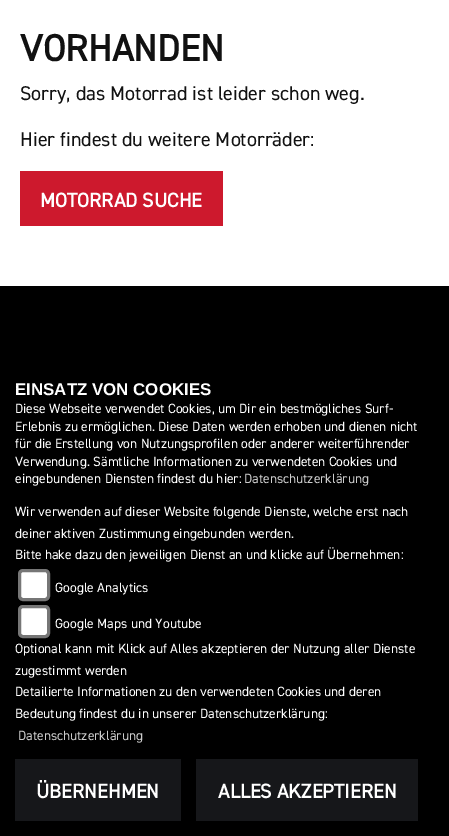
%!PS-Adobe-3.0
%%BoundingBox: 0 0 449 836
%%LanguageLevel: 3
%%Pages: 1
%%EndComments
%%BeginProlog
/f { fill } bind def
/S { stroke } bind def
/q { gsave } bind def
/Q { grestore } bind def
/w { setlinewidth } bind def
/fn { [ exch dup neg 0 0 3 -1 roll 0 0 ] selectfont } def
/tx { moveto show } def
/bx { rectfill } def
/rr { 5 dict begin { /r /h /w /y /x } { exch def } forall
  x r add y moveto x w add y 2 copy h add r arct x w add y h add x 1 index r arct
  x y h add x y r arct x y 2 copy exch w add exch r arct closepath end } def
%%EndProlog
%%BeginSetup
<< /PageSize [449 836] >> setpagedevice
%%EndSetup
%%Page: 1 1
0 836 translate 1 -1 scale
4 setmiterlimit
1 setgray
0 0 449 836 bx
/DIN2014-Bold 37.5 fn
0.067 setgray
(VORHANDEN) 20 61 tx
/DIN2014-Regular 20 fn
(Sorry, das Motorrad ist leider schon weg.) 20 100 tx
(Hier findest du weitere Motorräder:) 20 146 tx
0.804 0.098 0.176 setrgbcolor
20 171 203 55 bx
/DIN2014-Bold 20 fn
1 setgray
(MOTORRAD SUCHE) 40 207 tx
0 setgray
0 286 449 550 bx
/LiberationSans-Bold 16.9 fn
1 setgray
(EINSATZ VON COOKIES) 15 395 tx
/DIN2014-Regular 13.5 fn
(Diese Webseite verwendet Cookies, um Dir ein bestmögliches Surf-) 15 413 tx
(Erlebnis zu ermöglichen. Diese Daten werden erhoben und dienen nicht) 15 431 tx
(für die Erstellung von Nutzungsprofilen oder anderer weiterführender) 15 448 tx
(Verwendung. Sämtliche Informationen zu verwendeten Cookies und) 15 466 tx
(eingebundenen Diensten findest du hier:) 15 483 tx
0.8 setgray
(Datenschutzerklärung) 244 483 tx
1 setgray
(Wir verwenden auf dieser Website folgende Dienste, welche erst nach) 15 516 tx
(deiner aktiven Zustimmung eingebunden werden.) 15 538 tx
(Bitte hake dazu den jeweiligen Dienst an und klicke auf Übernehmen:) 15 559 tx
19.5 570.5 29 29 3.5 rr q f Q
0.463 setgray
3 w
S
1 setgray
(Google Analytics) 55 592 tx
19.5 606.5 29 30 3.5 rr q f Q
0.463 setgray
S
1 setgray
(Google Maps und Youtube) 55 628 tx
(Optional kann mit Klick auf Alles akzeptieren der Nutzung aller Dienste) 15 653 tx
(zugestimmt werden) 15 675 tx
(Detailierte Informationen zu den verwendeten Cookies und deren) 15 696 tx
(Bedeutung findest du in unserer Datenschutzerklärung:) 15 718 tx
0.8 setgray
(Datenschutzerklärung) 18 740 tx
0.086 0.09 0.102 setrgbcolor
15 759 166 62 bx
/DIN2014-Bold 20 fn
1 setgray
(ÜBERNEHMEN) 36 798 tx
0.086 0.09 0.102 setrgbcolor
196 759 222 62 bx
1 setgray
(ALLES AKZEPTIEREN) 218 798 tx
showpage
%%EOF
